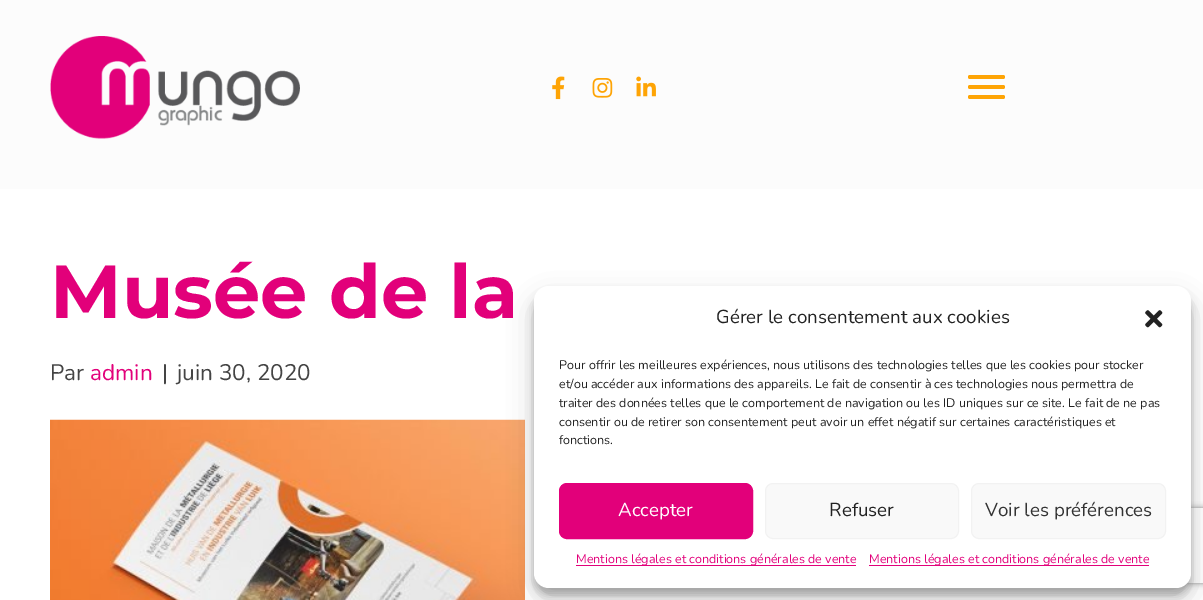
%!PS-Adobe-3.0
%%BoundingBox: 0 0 1203 600
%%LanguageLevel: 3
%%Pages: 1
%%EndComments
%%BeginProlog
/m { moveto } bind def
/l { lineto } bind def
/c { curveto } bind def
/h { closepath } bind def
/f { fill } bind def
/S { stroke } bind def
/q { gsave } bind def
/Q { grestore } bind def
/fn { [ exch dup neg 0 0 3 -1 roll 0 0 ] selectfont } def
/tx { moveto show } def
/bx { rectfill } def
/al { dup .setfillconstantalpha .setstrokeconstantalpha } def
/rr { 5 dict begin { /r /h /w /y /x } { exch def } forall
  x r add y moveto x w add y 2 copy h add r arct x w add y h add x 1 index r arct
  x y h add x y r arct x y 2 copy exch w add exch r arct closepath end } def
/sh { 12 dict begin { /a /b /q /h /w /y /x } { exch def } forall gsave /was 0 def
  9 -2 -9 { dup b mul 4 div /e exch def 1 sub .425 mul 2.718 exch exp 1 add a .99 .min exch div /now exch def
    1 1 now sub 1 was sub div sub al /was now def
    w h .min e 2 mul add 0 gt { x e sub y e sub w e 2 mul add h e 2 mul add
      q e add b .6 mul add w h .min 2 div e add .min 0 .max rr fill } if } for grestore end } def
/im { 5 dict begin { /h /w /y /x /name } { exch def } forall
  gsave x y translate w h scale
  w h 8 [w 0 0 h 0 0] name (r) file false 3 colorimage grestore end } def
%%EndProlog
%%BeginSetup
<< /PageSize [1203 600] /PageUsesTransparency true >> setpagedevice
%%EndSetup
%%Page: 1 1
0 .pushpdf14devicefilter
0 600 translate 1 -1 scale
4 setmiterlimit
1 setgray
0 0 1203 600 bx
0.988 setgray
0 0 1203 189 bx
(image0.raw) 50 36 250 103 im
(image1.raw) 552 76 13 24 im
(image2.raw) 592 78 21 20 im
(image3.raw) 636 76 20 21 im
0.996 0.643 0.02 setrgbcolor
968 85 37 4 2 rr f
968 75 37 4 2 rr f
968 95 37 4 2 rr f
/Montserrat-Thin 75 fn
0.886 0 0.478 setrgbcolor
(Musée de la) 50 318 tx
/Nunito-Regular 22.5 fn
0.267 setgray
(Par) 50 380 tx
0.886 0 0.478 setrgbcolor
(admin) 90 380 tx
0.267 setgray
(|) 162 380 tx
(juin 30, 2020) 177 380 tx
(image4.raw) 50 419 475 181 im
0 setgray
534 294 657 301 15 4 0.23 sh
534 299 657 301 15 12.5 0.19 sh
q
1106 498 m 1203 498 l 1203 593 l 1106 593 l h 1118.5 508 m 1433.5 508 l 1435 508 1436 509 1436 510.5 c 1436 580.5 l 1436 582 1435 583 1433.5 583 c 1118.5 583 l 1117 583 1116 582 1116 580.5 c 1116 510.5 l 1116 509 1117 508 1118.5 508 c h eoclip newpath
0.502 setgray
1116 508 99 75 2.5 3 1 sh
Q
1 setgray
534 286 657 302 15 rr f
/Nunito-Regular 18.75 fn
0.133 setgray
(Gérer le consentement aux cookies) 716 323 tx
(image5.raw) 1145 310 18 18 im
/Nunito-Regular 12.5 fn
(Pour offrir les meilleures expériences, nous utilisons des technologies telles que les cookies pour stocker) 559 369 tx
(et/ou accéder aux informations des appareils. Le fait de consentir à ces technologies nous permettra de) 559 388 tx
(traiter des données telles que le comportement de navigation ou les ID uniques sur ce site. Le fait de ne pas) 559 407 tx
(consentir ou de retirer son consentement peut avoir un effet négatif sur certaines caractéristiques et) 559 426 tx
(fonctions.) 559 444 tx
0.886 0 0.478 setrgbcolor
559.5 483.5 193 55 7.5 rr q f Q
S
/Nunito-Regular 18.75 fn
1 setgray
(Accepter) 618 516 tx
0.976 setgray
765.5 483.5 193 55 7.5 rr q f Q
0.949 setgray
S
0.133 setgray
(Refuser) 829 516 tx
0.976 setgray
971.5 483.5 194 55 7.5 rr q f Q
0.949 setgray
S
0.2 setgray
(Voir les préférences) 985 516 tx
0.886 0 0.478 setrgbcolor
576 565 280 1 bx
/Nunito-Regular 12.5 fn
(Mentions légales et conditions générales de vente) 576 563 tx
869 565 280 1 bx
(Mentions légales et conditions générales de vente) 869 563 tx
.poppdf14devicefilter showpage
%%EOF
